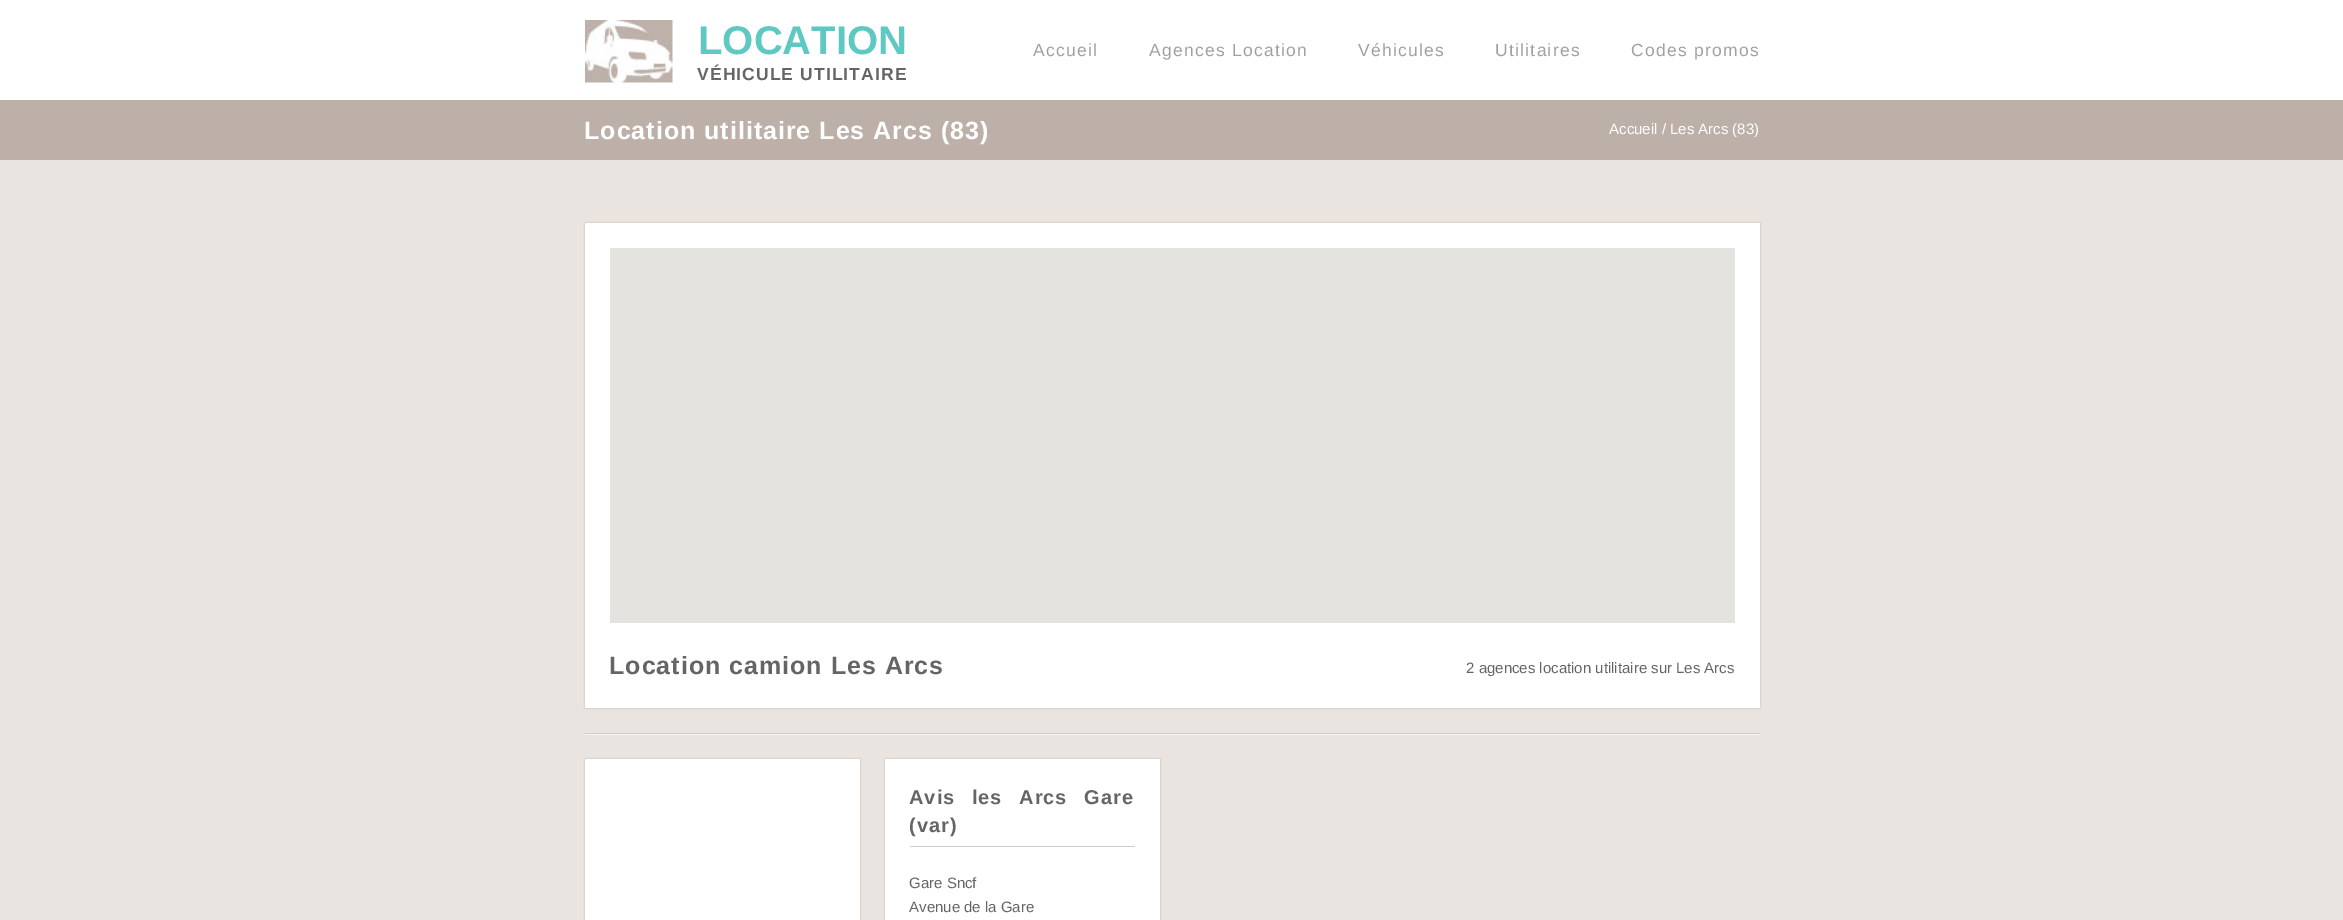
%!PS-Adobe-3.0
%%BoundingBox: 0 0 2343 920
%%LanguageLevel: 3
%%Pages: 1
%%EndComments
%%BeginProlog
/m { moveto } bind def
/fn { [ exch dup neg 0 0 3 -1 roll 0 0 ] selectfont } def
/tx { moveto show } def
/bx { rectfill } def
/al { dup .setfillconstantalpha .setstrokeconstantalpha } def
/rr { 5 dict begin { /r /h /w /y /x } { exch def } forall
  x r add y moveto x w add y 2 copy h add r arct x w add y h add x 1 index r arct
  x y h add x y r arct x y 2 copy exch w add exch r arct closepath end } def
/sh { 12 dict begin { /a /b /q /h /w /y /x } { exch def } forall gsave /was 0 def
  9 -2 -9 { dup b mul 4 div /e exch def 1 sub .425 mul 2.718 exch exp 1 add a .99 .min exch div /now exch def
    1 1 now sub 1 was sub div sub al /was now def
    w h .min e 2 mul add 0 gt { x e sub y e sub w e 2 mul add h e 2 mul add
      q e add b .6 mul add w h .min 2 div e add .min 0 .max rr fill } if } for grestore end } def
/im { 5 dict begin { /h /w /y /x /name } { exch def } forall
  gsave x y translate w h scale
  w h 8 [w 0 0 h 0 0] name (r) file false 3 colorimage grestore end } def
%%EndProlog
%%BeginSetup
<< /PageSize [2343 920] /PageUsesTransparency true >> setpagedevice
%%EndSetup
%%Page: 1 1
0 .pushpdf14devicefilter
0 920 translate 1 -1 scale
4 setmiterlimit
0.914 0.894 0.878 setrgbcolor
0 0 2343 920 bx
1 setgray
0 0 2343 100 bx
(image0.raw) 585 20 88 63 im
/LiberationSans-Bold 40 fn
0.373 0.784 0.761 setrgbcolor
(LOCATION) 698 54 tx
/LiberationSans-Bold 17.5 fn
0.396 setgray
697 80 m 1.1 0 (VÉHICULE UTILITAIRE) ashow
/LiberationSans-Regular 17.5 fn
0.627 setgray
1033 56 m 1.25 0 (Accueil) ashow
1149 56 m 1.25 0 (Agences Location) ashow
1358 56 m 1.25 0 (Véhicules) ashow
1495 56 m 1.25 0 (Utilitaires) ashow
1631 56 m 1.25 0 (Codes promos) ashow
0.741 0.69 0.659 setrgbcolor
0 100 2343 60 bx
/LiberationSans-Bold 25 fn
1 setgray
584 139 m 1 0 (Location utilitaire Les Arcs \(83\)) ashow
/LiberationSans-Regular 15 fn
(Accueil / Les Arcs \(83\)) 1609 134 tx
0.745 0.694 0.663 setrgbcolor
585 223 1175 485 0 1 1 sh
1 setgray
585 223 1175 485 bx
0.898 0.89 0.875 setrgbcolor
610 248 1125 375 bx
/LiberationSans-Bold 25 fn
0.396 setgray
609 674 m 1 0 (Location camion Les Arcs) ashow
/LiberationSans-Regular 15 fn
(2 agences location utilitaire sur Les Arcs) 1466 673 tx
0.965 0.949 0.937 setrgbcolor
585 734 1175 1 bx
0.816 0.8 0.788 setrgbcolor
585 733 1175 1 bx
0.745 0.694 0.663 setrgbcolor
585 759 275 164 0 1 1 sh
1 setgray
585 759 275 161 bx
0.745 0.694 0.663 setrgbcolor
885 759 275 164 0 1 1 sh
1 setgray
885 759 275 161 bx
0.812 0.796 0.784 setrgbcolor
910 846 225 1 bx
/LiberationSans-Bold 20 fn
0.396 setgray
909 804 m 10 0 32 1 0 (Avis les Arcs Gare) awidthshow
909 832 m 1 0 (\(var\)) ashow
/LiberationSans-Regular 15 fn
(Gare Sncf) 909 888 tx
(Avenue de la Gare) 909 912 tx
.poppdf14devicefilter showpage
%%EOF
